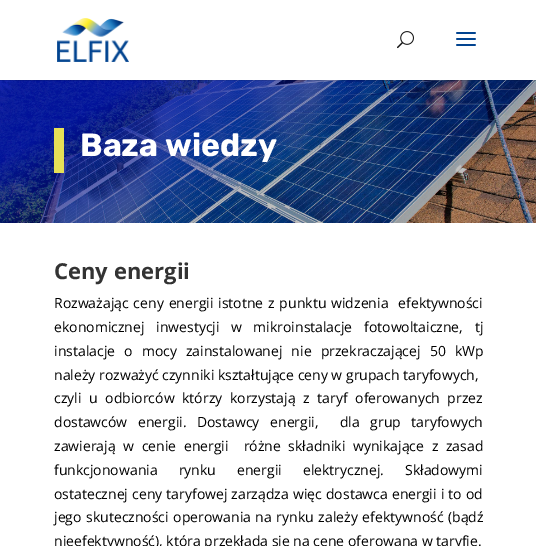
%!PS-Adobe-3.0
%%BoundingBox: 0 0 536 546
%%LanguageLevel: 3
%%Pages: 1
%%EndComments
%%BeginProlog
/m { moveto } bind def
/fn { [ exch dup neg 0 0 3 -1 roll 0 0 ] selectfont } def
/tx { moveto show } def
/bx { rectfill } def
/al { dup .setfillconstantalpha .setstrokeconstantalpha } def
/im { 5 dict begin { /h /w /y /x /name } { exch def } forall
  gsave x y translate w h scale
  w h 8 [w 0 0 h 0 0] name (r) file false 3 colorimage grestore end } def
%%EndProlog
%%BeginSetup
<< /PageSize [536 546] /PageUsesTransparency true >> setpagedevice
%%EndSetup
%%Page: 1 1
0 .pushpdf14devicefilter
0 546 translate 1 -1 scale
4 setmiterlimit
1 setgray
0 0 536 546 bx
(image3.raw) 0 80 536 143 im
0.1 al
0 setgray
0 80 536 1 bx
1 al
(image0.raw) 57 18 72 44 im
(image1.raw) 397 31 17 18 im
(image2.raw) 456 32 20 14 im
0.906 0.878 0.341 setrgbcolor
54 128 10 45 bx
/Rubik-Light 32 fn
1 setgray
(Baza wiedzy) 80 156 tx
/OpenSans-Bold 22 fn
0.2 setgray
(Ceny energii) 54 279 tx
/OpenSans-Regular 14 fn
0 setgray
54 308 m 1.25 0 32 (Rozważając ceny energii istotne z punktu widzenia  efektywności) widthshow
54 332 m 8 0 32 (ekonomicznej inwestycji w mikroinstalacje fotowoltaiczne, tj) widthshow
54 356 m 5.5 0 32 (instalacje o mocy zainstalowanej nie przekraczającej 50 kWp) widthshow
(należy rozważyć czynniki kształtujące ceny w grupach taryfowych,) 54 380 tx
54 403 m 4 0 32 (czyli u odbiorców którzy korzystają z taryf oferowanych przez) widthshow
54 427 m 7 0 32 (dostawców energii. Dostawcy energii,  dla grup taryfowych) widthshow
54 451 m 4 0 32 (zawierają w cenie energii  różne składniki wynikające z zasad) widthshow
54 475 m 17.5 0 32 (funkcjonowania rynku energii elektrycznej. Składowymi) widthshow
54 499 m 0.5 0 32 (ostatecznej ceny taryfowej zarządza więc dostawca energii i to od) widthshow
54 522 m 1 0 32 (jego skuteczności operowania na rynku zależy efektywność \(bądź) widthshow
(nieefektywność\), która przekłada się na cenę oferowaną w taryfie.) 54 546 tx
.poppdf14devicefilter showpage
%%EOF
